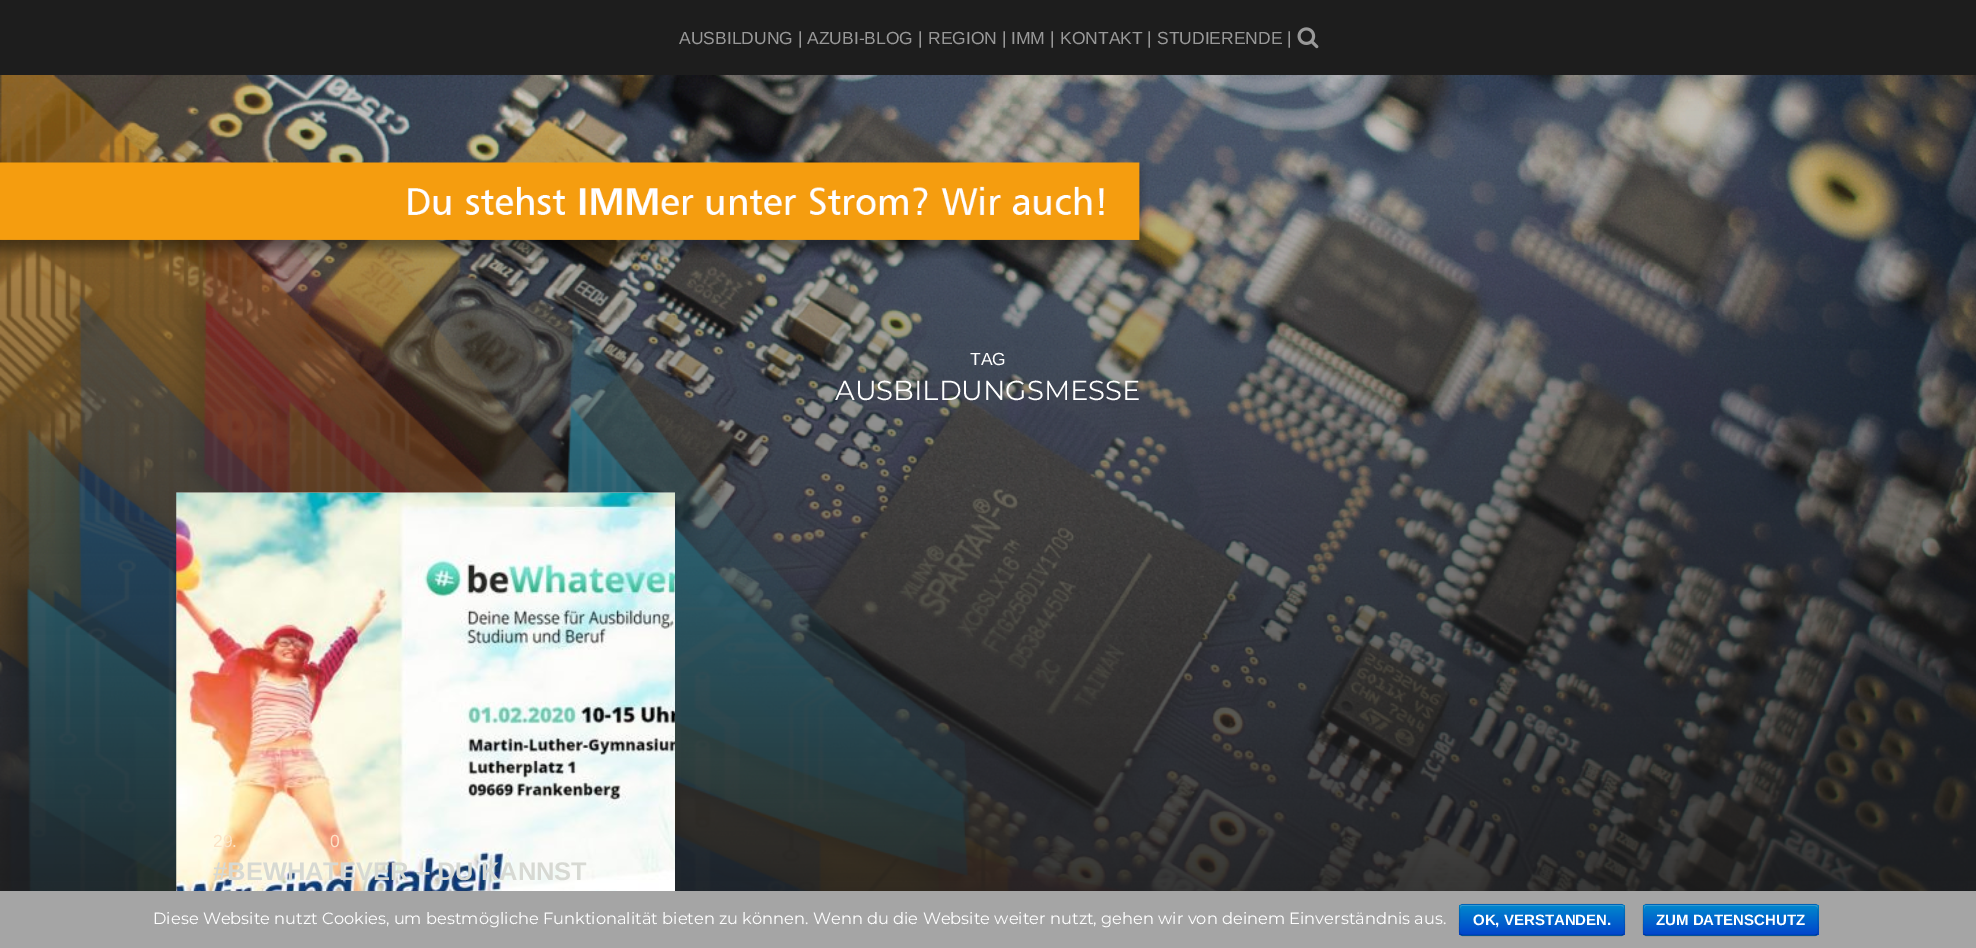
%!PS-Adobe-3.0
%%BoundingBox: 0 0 1976 948
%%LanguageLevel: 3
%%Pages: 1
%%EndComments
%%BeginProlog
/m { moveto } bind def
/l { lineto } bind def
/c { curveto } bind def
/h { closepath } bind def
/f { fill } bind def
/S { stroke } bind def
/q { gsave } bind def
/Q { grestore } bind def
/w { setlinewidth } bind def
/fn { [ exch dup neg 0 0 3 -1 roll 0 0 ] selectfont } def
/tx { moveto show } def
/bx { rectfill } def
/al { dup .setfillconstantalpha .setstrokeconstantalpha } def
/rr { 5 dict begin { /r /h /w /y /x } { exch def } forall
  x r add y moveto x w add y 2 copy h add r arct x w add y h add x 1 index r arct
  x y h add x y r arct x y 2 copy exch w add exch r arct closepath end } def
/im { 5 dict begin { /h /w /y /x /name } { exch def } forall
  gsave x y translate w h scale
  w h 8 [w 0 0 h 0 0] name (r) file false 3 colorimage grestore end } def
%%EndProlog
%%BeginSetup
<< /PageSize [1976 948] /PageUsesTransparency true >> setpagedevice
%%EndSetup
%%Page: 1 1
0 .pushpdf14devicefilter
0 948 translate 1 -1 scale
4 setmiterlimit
0.114 setgray
0 0 1976 948 bx
/LiberationSans-Regular 17.5 fn
0.6 setgray
(AUSBILDUNG |) 679 44 tx
(AZUBI-BLOG |) 807 44 tx
(REGION |) 928 44 tx
(IMM |) 1011 44 tx
(KONTAKT |) 1060 44 tx
(STUDIERENDE |) 1157 44 tx
(image0.raw) 1297 27 22 22 im
(image1.raw) 0 75 1976 816 im
(image2.raw) 0 162 1148 97 im
1 setgray
(TAG) 970 365 tx
/Montserrat-Regular 27.5 fn
(AUSBILDUNGSMESSE) 835 400 tx
(image3.raw) 176 492 499 399 im
/LiberationSans-Regular 17.5 fn
0.984 0.89 0.776 setrgbcolor
(29.) 213 847 tx
(0) 330 847 tx
/LiberationSans-Bold 25.5 fn
0.843 0.851 0.827 setrgbcolor
(#BEWHATEVER – DU KANNST) 213 880 tx
0.647 setgray
0 891 1976 57 bx
/Montserrat-Regular 16.25 fn
1 setgray
(Diese Website nutzt Cookies, um bestmögliche Funktionalität bieten zu können. Wenn du die Website weiter nutzt, gehen wir von deinem Einverständnis aus.) 153 924 tx
0 0.427 0.8 setrgbcolor
1459 904 166 32 4 rr f
q
1459 904 166 32 4 rr clip newpath
q 1459 905 m 1625 905 l 1625 935 l 1459 935 l h clip newpath
<< /ShadingType 2 /ColorSpace /DeviceRGB /Coords [1542 905 1542 935] /Extend [true true] /Function << /FunctionType 2 /Domain [0 1] /C0 [0 0.533 0.8] /C1 [0 0.267 0.8] /N 1 >> >> shfill Q
Q
0.2 0.624 0.839 setrgbcolor
1462 906 m 1621 906 l 1623 906 1624 907 1624 909 c 1624 907 1624 905 1622 905 c 1462 905 l 1460 905 1460 907 1460 909 c 1460 907 1461 906 1462 906 c h f
0.25 al
0 setgray
1.2 w
1623.5 934.5 m 1621.5 935.5 l 1489 935.5 l 1462.5 935.5 l 1460.5 934.5 l S
0.1 al
1460.5 934.5 m 1458 932.5 1459.5 923 1459.5 920 c 1459.5 911.5 l 1459.5 909.5 1458.5 904.5 1462.5 904.5 c 1621 904.5 l 1625 904.5 1624.5 909.5 1624.5 911.5 c 1624.5 920 l 1624.5 923 1625.5 932.5 1623.5 934.5 c S
/LiberationSans-Bold 15 fn
1 al
1 setgray
(OK, VERSTANDEN.) 1473 925 tx
0 0.427 0.8 setrgbcolor
1643 904 176 32 4 rr f
q
1643 904 176 32 4 rr clip newpath
q 1643 905 m 1819 905 l 1819 935 l 1643 935 l h clip newpath
<< /ShadingType 2 /ColorSpace /DeviceRGB /Coords [1731 905 1731 935] /Extend [true true] /Function << /FunctionType 2 /Domain [0 1] /C0 [0 0.533 0.8] /C1 [0 0.267 0.8] /N 1 >> >> shfill Q
Q
0.2 0.624 0.839 setrgbcolor
1646 906 m 1815 906 l 1816 906 1818 907 1818 909 c 1818 908 l 1818 906 1817 905 1816 905 c 1646 905 l 1645 905 1644 906 1644 908 c 1644 909 l 1644 907 1645 906 1646 906 c h f
0.25 al
0 setgray
1817 934.5 m 1815 935.5 l 1646 935.5 l 1644 934.5 l S
0.1 al
1644 934.5 m 1642 932.5 1643 923 1643 920 c 1643 911.5 l 1643 909.5 1642.5 904.5 1646 904.5 c 1815 904.5 l 1819 904.5 1818 909.5 1818 911.5 c 1818 920 l 1818 923 1819.5 932.5 1817 934.5 c S
1 al
1 setgray
(ZUM DATENSCHUTZ) 1656 925 tx
.poppdf14devicefilter showpage
%%EOF
